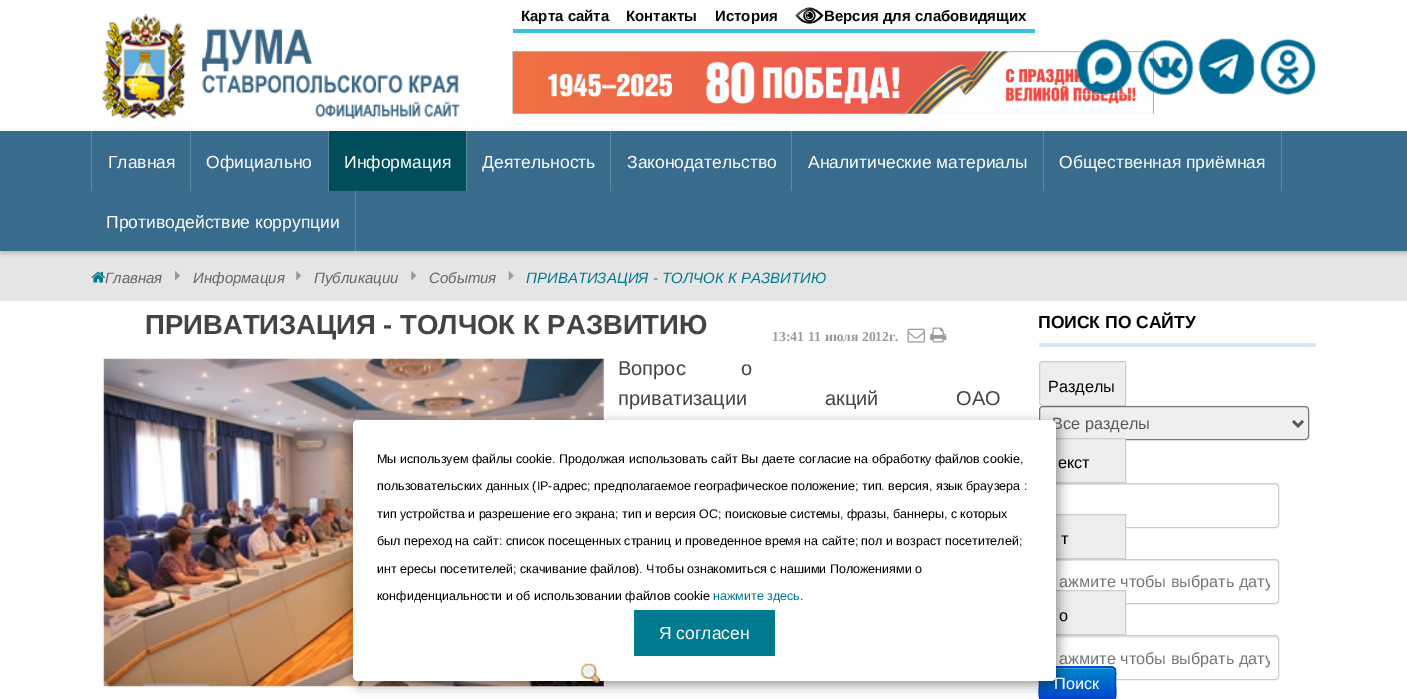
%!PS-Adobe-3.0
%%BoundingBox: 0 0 1407 699
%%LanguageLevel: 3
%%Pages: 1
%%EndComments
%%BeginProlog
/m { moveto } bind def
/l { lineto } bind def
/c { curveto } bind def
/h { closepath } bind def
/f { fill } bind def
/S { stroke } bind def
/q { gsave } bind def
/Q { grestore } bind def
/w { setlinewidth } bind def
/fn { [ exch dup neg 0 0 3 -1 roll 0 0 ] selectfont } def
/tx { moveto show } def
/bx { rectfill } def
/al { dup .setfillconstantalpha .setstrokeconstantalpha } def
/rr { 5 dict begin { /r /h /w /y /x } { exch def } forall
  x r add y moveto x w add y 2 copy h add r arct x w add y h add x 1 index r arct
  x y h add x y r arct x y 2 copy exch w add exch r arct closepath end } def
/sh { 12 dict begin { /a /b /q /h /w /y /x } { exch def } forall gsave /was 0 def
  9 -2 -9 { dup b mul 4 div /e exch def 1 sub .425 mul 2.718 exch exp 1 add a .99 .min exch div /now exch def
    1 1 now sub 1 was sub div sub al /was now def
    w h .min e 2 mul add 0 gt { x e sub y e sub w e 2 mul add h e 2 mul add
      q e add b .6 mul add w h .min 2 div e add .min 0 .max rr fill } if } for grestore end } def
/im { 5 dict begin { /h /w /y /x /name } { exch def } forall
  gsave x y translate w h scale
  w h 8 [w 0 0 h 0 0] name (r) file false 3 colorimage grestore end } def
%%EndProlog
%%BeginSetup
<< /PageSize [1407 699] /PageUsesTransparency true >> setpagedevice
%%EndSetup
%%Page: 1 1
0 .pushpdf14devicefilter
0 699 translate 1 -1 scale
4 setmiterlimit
1 setgray
0 0 1407 699 bx
(image0.raw) 102 13 358 106 im
0.239 0.745 0.898 setrgbcolor
513 29 522 4 bx
/LiberationSans-Bold 15 fn
0.024 setgray
(Карта сайта) 521 21 tx
(Контакты) 626 21 tx
(История) 715 21 tx
(image1.raw) 795 7 29 17 im
(Версия для слабовидящих) 824 21 tx
(image2.raw) 512 51 642 63 im
(image3.raw) 1076 38 240 57 im
0.898 setgray
0 251 1407 50 bx
0 setgray
1 133 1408 120 0 2.5 0.2 sh
0.224 0.42 0.549 setrgbcolor
0 131 1407 120 bx
0.38 0.537 0.639 setrgbcolor
190 131 1 60 bx
91 131 1 60 bx
/LiberationSans-Regular 17.5 fn
1 setgray
(Главная) 108 168 tx
0.38 0.537 0.639 setrgbcolor
328 131 1 60 bx
1 setgray
(Официально) 206 168 tx
0.38 0.537 0.639 setrgbcolor
466 131 1 60 bx
0 0.306 0.361 setrgbcolor
329 131 137 60 bx
1 setgray
(Информация) 344 168 tx
0.38 0.537 0.639 setrgbcolor
610 131 1 60 bx
1 setgray
(Деятельность) 482 168 tx
0.38 0.537 0.639 setrgbcolor
791 131 1 60 bx
1 setgray
(Законодательство) 627 168 tx
0.38 0.537 0.639 setrgbcolor
1043 131 1 60 bx
1 setgray
(Аналитические материалы) 808 168 tx
0.38 0.537 0.639 setrgbcolor
1281 131 1 60 bx
1 setgray
(Общественная приёмная) 1059 168 tx
0.38 0.537 0.639 setrgbcolor
355 191 1 60 bx
1 setgray
(Противодействие коррупции) 106 228 tx
(image4.raw) 91 271 14 12 im
/LiberationSans-Italic 15 fn
0.4 setgray
(Главная) 105 283 tx
(image5.raw) 175 271 5 9 im
(Информация) 193 283 tx
(image6.raw) 296 271 6 9 im
(Публикации) 314 283 tx
(image6.raw) 411 271 6 9 im
(События) 429 283 tx
(image7.raw) 508 271 6 9 im
0 0.478 0.561 setrgbcolor
(ПРИВАТИЗАЦИЯ - ТОЛЧОК К РАЗВИТИЮ) 526 283 tx
/LiberationSans-Bold 27.5 fn
0.267 setgray
(ПРИВАТИЗАЦИЯ - ТОЛЧОК К РАЗВИТИЮ) 145 334 tx
/LiberationSerif-Bold 13.75 fn
0.6 setgray
(13:41 11 июля 2012г.) 772 341 tx
(image8.raw) 907 328 18 15 im
(image9.raw) 930 327 17 16 im
(image10.raw) 103 358 501 329 im
0.933 setgray
1043 361.5 m 1125.5 361.5 l 1125.5 405.5 l 1043 405.5 l 1041 405.5 1039.5 404 1039.5 402 c 1039.5 365 l 1039.5 363 1041 361.5 1043 361.5 c h q f Q
0.8 setgray
S
0.937 setgray
1039.5 406.5 269 33 3.5 rr q f Q
0.463 setgray
S
0.933 setgray
1056 439 69 43 bx
0.8 setgray
1039.5 438.5 86 44 rectstroke
0.925 setgray
1040 485 m 1275 485 l 1276 485 1278 486 1278 488 c 1278 486 1278 484 1276 484 c 1040 484 l h f
0.8 setgray
1039.5 483.5 m 1275 483.5 l 1277 483.5 1278.5 485 1278.5 487 c 1278.5 524 l 1278.5 526 1277 527.5 1275 527.5 c 1039.5 527.5 l h S
0.933 setgray
1056 515 69 43 bx
0.8 setgray
1039.5 514.5 86 44 rectstroke
0.925 setgray
1040 561 m 1275 561 l 1276 561 1278 562 1278 564 c 1278 562 1278 560 1276 560 c 1040 560 l h f
0.8 setgray
1039.5 559.5 m 1275 559.5 l 1277 559.5 1278.5 561 1278.5 563 c 1278.5 600 l 1278.5 602 1277 603.5 1275 603.5 c 1039.5 603.5 l h S
0.933 setgray
1056 591 69 43 bx
q
1048 573 222 18 rectclip
/LiberationSans-Regular 16.25 fn
0.459 setgray
(ажмите чтобы выбрать дату) 1059 587 tx
Q
0.8 setgray
1039.5 590.5 86 44 rectstroke
0.925 setgray
1040 638 m 1275 638 l 1276 638 1278 639 1278 640 c 1278 638 1278 636 1276 636 c 1040 636 l h f
0.8 setgray
1039.5 635.5 m 1275 635.5 l 1277 635.5 1278.5 637 1278.5 639 c 1278.5 676 l 1278.5 678 1277 679.5 1275 679.5 c 1039.5 679.5 l h S
q
1048 649 222 19 rectclip
/LiberationSans-Regular 16.25 fn
0.459 setgray
(ажмите чтобы выбрать дату) 1059 664 tx
Q
0 0.427 0.8 setrgbcolor
1039 666 77 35 5 rr f
q
1039 666 77 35 5 rr clip newpath
q 1039 668 m 1116 668 l 1116 699 l 1039 699 l h clip newpath
<< /ShadingType 2 /ColorSpace /DeviceRGB /Coords [1078 668 1078 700] /Extend [true true] /Function << /FunctionType 2 /Domain [0 1] /C0 [0 0.533 0.8] /C1 [0 0.267 0.8] /N 1 >> >> shfill Q
Q
0.2 0.624 0.839 setrgbcolor
1044 669 m 1111 669 l 1113 669 1115 670 1115 672 c 1115 670 1113 668 1111 668 c 1044 668 l 1042 668 1040 670 1040 672 c 1040 670 1042 669 1044 669 c h f
0 0.267 0.8 setrgbcolor
1.2 w
1040.5 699.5 m 1038 697 1039.5 687 1039.5 684 c 1039.5 665.5 1036.5 667 1055 667 c 1100 667 l 1118.5 667 1115.5 665.5 1115.5 684 c 1115.5 687 1117 697 1114.5 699.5 c S
0 setgray
355 424 704 261 5 6 0.4 sh
/LiberationSans-Regular 16.25 fn
0.333 setgray
(Все разделы) 1052 429 tx
1 setgray
353 420 703 261 5 rr f
(image11.raw) 581 663 20 21 im
/LiberationSans-Regular 20 fn
0.267 setgray
618 375 m 50 0 32 (Вопрос о) widthshow
618 405 m 72 0 32 (приватизации акций ОАО) widthshow
0.835 0.902 0.969 setrgbcolor
1039 343 277 4 bx
/LiberationSans-Bold 17.5 fn
0 setgray
(ПОИСК ПО САЙТУ) 1038 328 tx
/LiberationSans-Regular 16.25 fn
(Разделы) 1048 392 tx
0.333 setgray
2.5 w
1293 421 m 1298 426 l 1303 421 l S
0 setgray
(екст) 1058 468 tx
(т) 1061 544 tx
(о) 1059 621 tx
1 setgray
(Поиск) 1054 689 tx
/LiberationSans-Regular 12.5 fn
0 setgray
(Мы используем файлы cookie. Продолжая использовать сайт Вы даете согласие на обработку файлов cookie,) 377 463 tx
(пользовательских данных \(IP-адрес; предполагаемое географическое положение; тип. версия, язык браузера :) 377 490 tx
(тип устройства и разрешение его экрана; тип и версия ОС; поисковые системы, фразы, баннеры, с которых) 377 518 tx
(был переход на сайт: список посещенных страниц и проведенное время на сайте; пол и возраст посетителей;) 377 545 tx
(инт ересы посетителей; скачивание файлов\). Чтобы ознакомиться с нашими Положениями о) 377 573 tx
(конфиденциальности и об использовании файлов cookie) 377 600 tx
0 0.478 0.561 setrgbcolor
(нажмите здесь) 713 600 tx
0 setgray
(.) 800 600 tx
0 0.478 0.561 setrgbcolor
634 610 141 46 bx
/LiberationSans-Regular 17.5 fn
1 setgray
(Я согласен) 659 639 tx
.poppdf14devicefilter showpage
%%EOF
